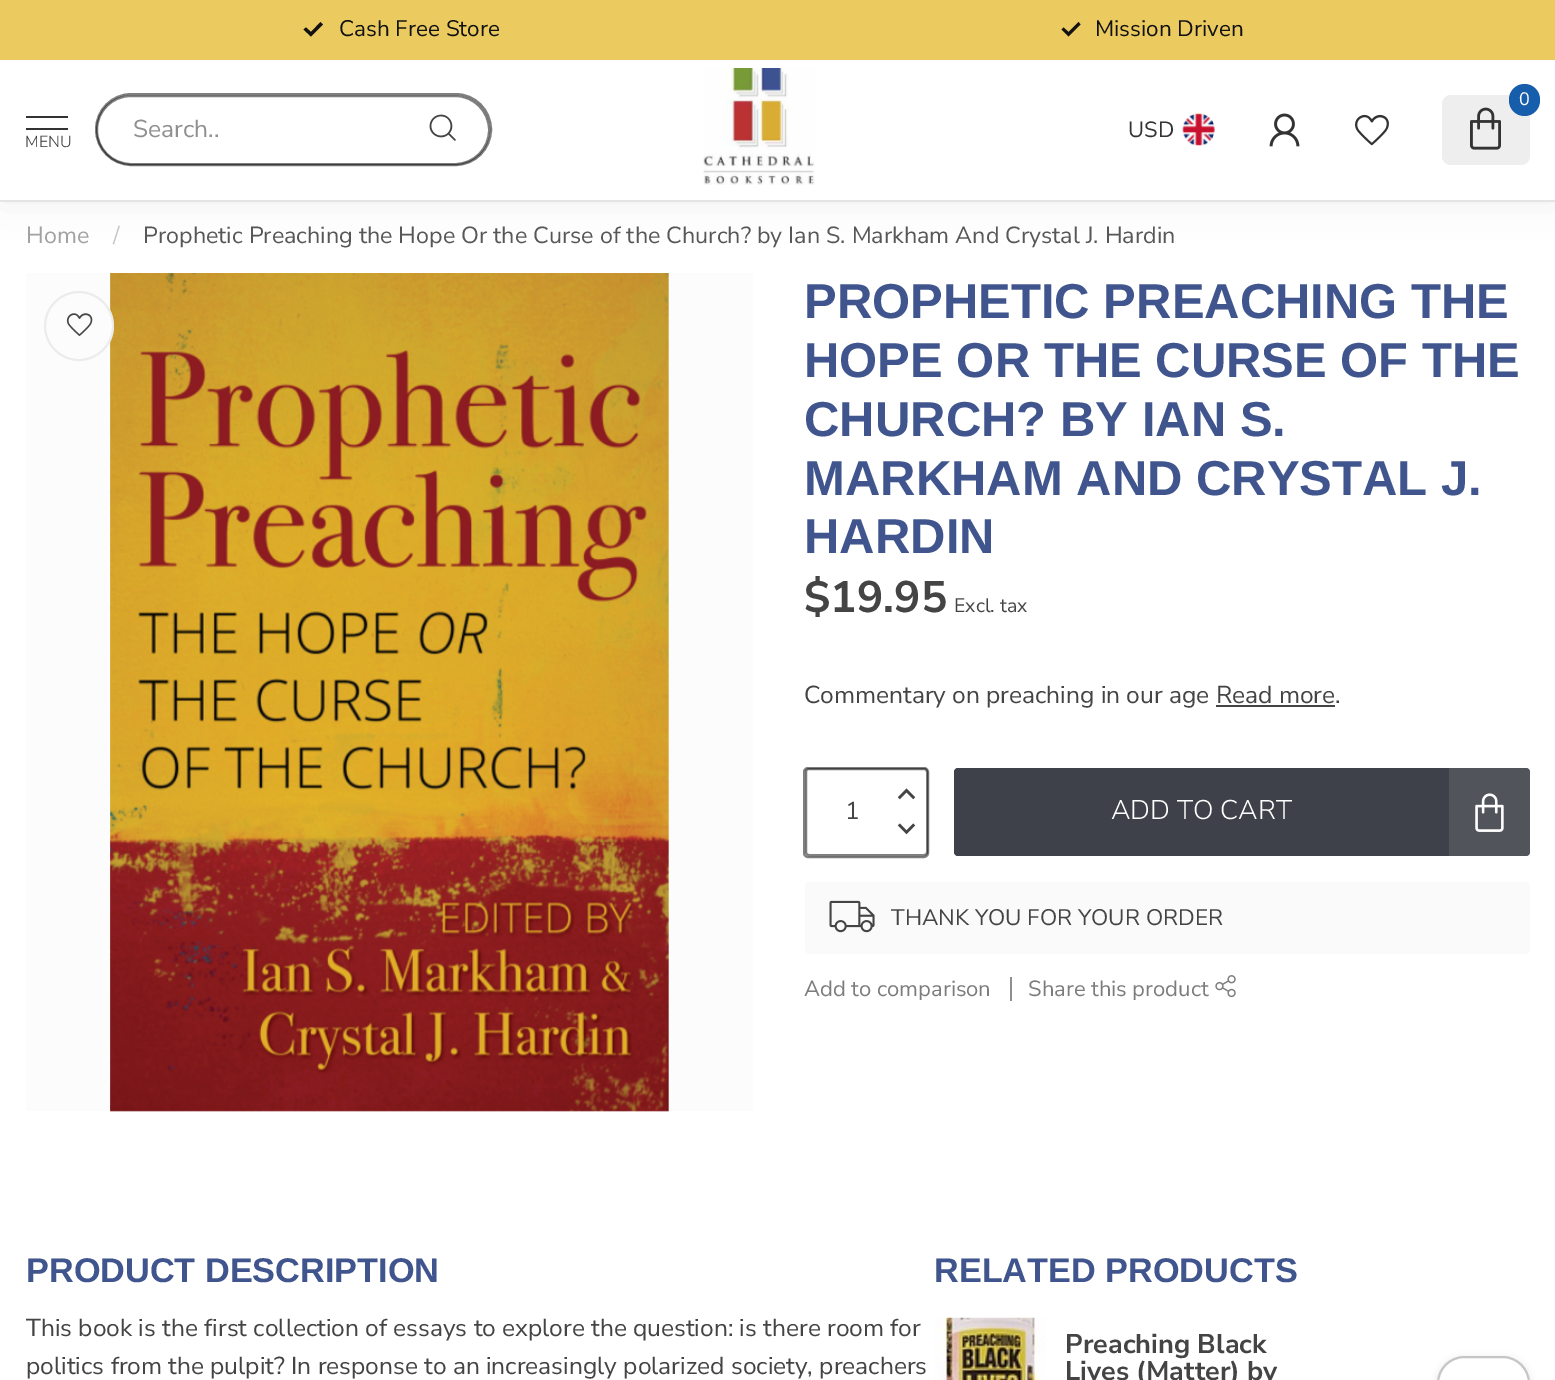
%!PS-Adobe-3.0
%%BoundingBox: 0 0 1555 1380
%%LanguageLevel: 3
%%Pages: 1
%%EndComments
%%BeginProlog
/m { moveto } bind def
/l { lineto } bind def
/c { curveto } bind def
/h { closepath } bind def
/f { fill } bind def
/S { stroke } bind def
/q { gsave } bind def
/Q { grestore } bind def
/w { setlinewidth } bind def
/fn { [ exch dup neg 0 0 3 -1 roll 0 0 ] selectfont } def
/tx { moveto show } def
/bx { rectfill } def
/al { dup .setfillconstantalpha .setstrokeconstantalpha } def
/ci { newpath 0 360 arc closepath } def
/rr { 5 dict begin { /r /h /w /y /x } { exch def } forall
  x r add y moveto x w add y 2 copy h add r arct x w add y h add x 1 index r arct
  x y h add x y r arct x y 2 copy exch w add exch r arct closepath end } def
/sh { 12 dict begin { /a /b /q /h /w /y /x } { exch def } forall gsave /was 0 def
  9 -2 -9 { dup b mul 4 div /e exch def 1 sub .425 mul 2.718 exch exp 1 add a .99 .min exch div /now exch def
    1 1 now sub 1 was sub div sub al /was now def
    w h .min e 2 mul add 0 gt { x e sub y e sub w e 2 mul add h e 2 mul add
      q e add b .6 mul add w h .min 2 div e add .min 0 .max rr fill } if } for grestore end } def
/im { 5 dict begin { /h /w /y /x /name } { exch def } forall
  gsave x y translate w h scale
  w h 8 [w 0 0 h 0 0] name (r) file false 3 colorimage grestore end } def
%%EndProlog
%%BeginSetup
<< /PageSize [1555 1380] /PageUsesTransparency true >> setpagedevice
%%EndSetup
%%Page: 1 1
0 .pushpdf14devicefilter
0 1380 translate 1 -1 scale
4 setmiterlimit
1 setgray
0 0 1555 1380 bx
0.988 setgray
26 273 727 838 bx
0.933 setgray
0 200 1555 2 bx
0 setgray
0 0 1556 200 0 17.5 0.07 sh
1 setgray
0 60 1555 140 bx
0.922 0.796 0.373 setrgbcolor
0 0 1555 60 bx
0.067 0.071 0.067 setrgbcolor
311 36.5 m 303.5 29.5 l 306 27.5 l 311 32 l 320.5 22 l 323 24.5 l h f
/NunitoSans-Regular 22.5 fn
(Cash Free Store) 339 36 tx
1068.5 36.5 m 1061.5 29.5 l 1063.5 27.5 l 1068.5 32 l 1078.5 22 l 1080.5 24.5 l h f
(Mission Driven) 1095 36 tx
0.498 setgray
2 w
97 96 392 68 34 rr S
0.5 al
0 setgray
96 94 395 71 35.5 rr S
/NunitoSans-Regular 24.5 fn
1 al
0.561 setgray
(Search..) 133 137 tx
(image0.raw) 429 114 27 27 im
0.2 setgray
26 116 42 2 bx
26 128 42 2 bx
/NunitoSans-Light 16 fn
(MENU) 25 147 tx
(image1.raw) 703 68 112 117 im
0.933 setgray
1442 95 88 70 9 rr f
0.086 0.365 0.671 setrgbcolor
1509 84 31 32 15.5 rr f
/NunitoSans-Regular 18 fn
1 setgray
(0) 1519 105 tx
(image2.raw) 1470 107 31 43 im
/NunitoSans-Regular 22 fn
0.2 setgray
(USD) 1128 137 tx
(image3.raw) 1182 113 33 33 im
(image4.raw) 1269 113 31 34 im
(image5.raw) 1355 114 34 32 im
/NunitoSans-Regular 23.3 fn
0.635 setgray
(Home) 26 243 tx
0.78 setgray
(/) 113 243 tx
0.341 setgray
(Prophetic Preaching the Hope Or the Curse of the Church? by Ian S. Markham And Crystal J. Hardin) 143 243 tx
(image7.raw) 110 273 559 839 im
0.988 setgray
79 326 35 ci f
0.17 al
0.608 setgray
79 326 34 ci S
1 al
(image6.raw) 66 313 27 23 im
/LiberationSans-Bold 49 fn
0.251 0.333 0.553 setrgbcolor
(PROPHETIC PREACHING THE) 804 318 tx
(HOPE OR THE CURSE OF THE) 804 377 tx
(CHURCH? BY IAN S.) 804 436 tx
(MARKHAM AND CRYSTAL J.) 804 495 tx
(HARDIN) 804 553 tx
/NunitoSans-Bold 44 fn
0.267 setgray
($19.95) 804 612 tx
/NunitoSans-Regular 19.5 fn
(Excl. tax) 954 612 tx
/NunitoSans-Regular 24.5 fn
(Commentary on preaching in our age Read more.) 804 703 tx
1216 705 119 2 bx
0.502 setgray
806 769 121 86 3 rr S
0.5 al
0 setgray
804 768 124 89 4 rr S
1 al
(image8.raw) 897 788 19 12 im
0.267 setgray
(1) 845 819 tx
(image9.raw) 897 823 19 12 im
0.243 0.255 0.29 setrgbcolor
954 768 576 88 4 rr f
/NunitoSans-Light 27 fn
1 setgray
(ADD TO CART) 1111 819 tx
(image10.raw) 1475 793 29 39 im
0.1 al
1449 768 81 88 bx
1 al
0.98 setgray
805 882 725 72 4 rr f
(image11.raw) 829 900 46 33 im
/NunitoSans-Regular 22.5 fn
0.267 setgray
(THANK YOU FOR YOUR ORDER) 891 925 tx
/NunitoSans-Regular 22 fn
0.486 setgray
(Add to comparison) 804 996 tx
0.561 setgray
1010 977 2 24 bx
0.486 setgray
(Share this product) 1028 996 tx
(image12.raw) 1215 975 21 23 im
/LiberationSans-Bold 34.25 fn
0.251 0.333 0.553 setrgbcolor
(PRODUCT DESCRIPTION) 26 1282 tx
/NunitoSans-Regular 24.5 fn
0.267 setgray
(This book is the first collection of essays to explore the question: is there room for) 26 1336 tx
(politics from the pulpit? In response to an increasingly polarized society, preachers) 26 1374 tx
/LiberationSans-Bold 34.25 fn
0.251 0.333 0.553 setrgbcolor
(RELATED PRODUCTS) 934 1282 tx
(image13.raw) 934 1317 112 63 im
/NunitoSans-Bold 27 fn
0.267 setgray
(Preaching Black) 1065 1353 tx
(Lives \(Matter\) by) 1065 1380 tx
q
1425 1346 m 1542 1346 l 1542 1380 l 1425 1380 l h 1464.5 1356 m 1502.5 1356 l 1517.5 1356 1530 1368.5 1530 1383.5 c 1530 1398.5 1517.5 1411 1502.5 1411 c 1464.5 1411 l 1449.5 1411 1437 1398.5 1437 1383.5 c 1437 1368.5 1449.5 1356 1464.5 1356 c h eoclip newpath
0 setgray
1437 1358 93 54 27 3.5 0.1 sh
Q
0.776 setgray
1438 1357 91 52 26.5 rr S
.poppdf14devicefilter showpage
%%EOF
